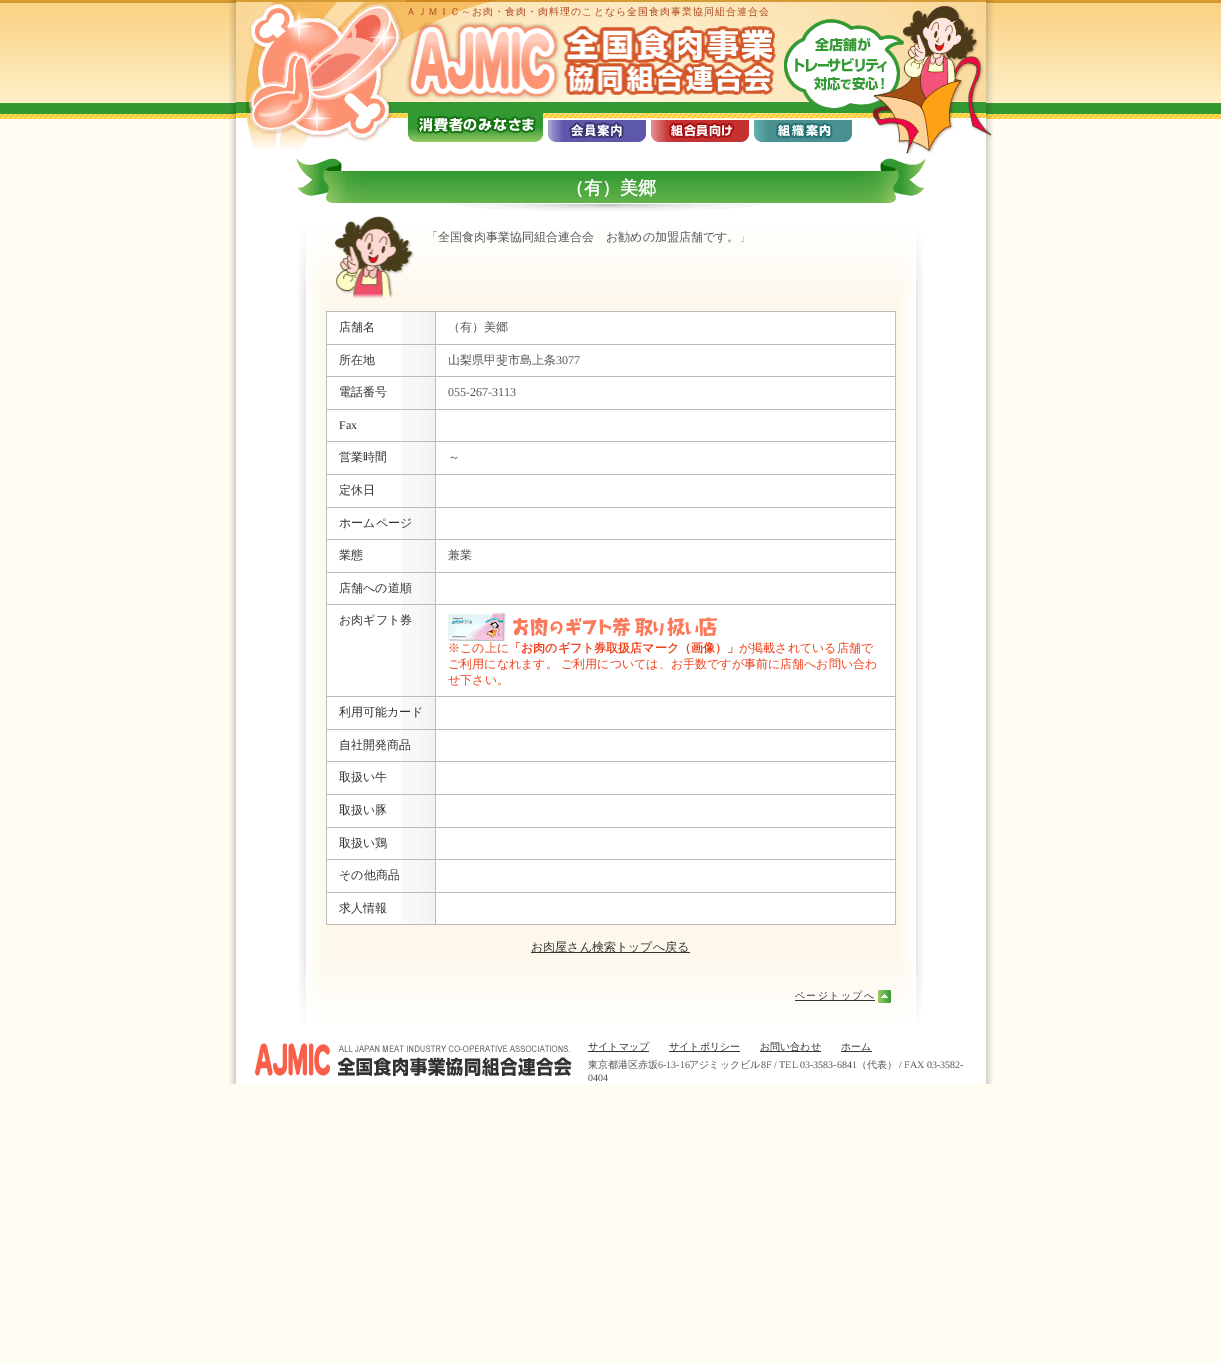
%!PS-Adobe-3.0
%%BoundingBox: 0 0 1221 1362
%%LanguageLevel: 3
%%Pages: 1
%%EndComments
%%BeginProlog
/m { moveto } bind def
/fn { [ exch dup neg 0 0 3 -1 roll 0 0 ] selectfont } def
/tx { moveto show } def
/bx { rectfill } def
/im { 5 dict begin { /h /w /y /x /name } { exch def } forall
  gsave x y translate w h scale
  w h 8 [w 0 0 h 0 0] name (r) file false 3 colorimage grestore end } def
%%EndProlog
%%BeginSetup
<< /PageSize [1221 1362] >> setpagedevice
%%EndSetup
%%Page: 1 1
0 1362 translate 1 -1 scale
4 setmiterlimit
1 0.992 0.945 setrgbcolor
0 0 1221 1362 bx
(image0.raw) 0 0 1221 119 im
(image1.raw) 221 155 780 929 im
(image2.raw) 221 0 780 155 im
(image3.raw) 406 0 370 99 im
/WenQuanYiZenHei-Medium 10 fn
0.69 0.294 0.133 setrgbcolor
406 15 m 1 0 (ＡＪＭＩＣ～お肉・食肉・肉料理のことなら全国食肉事業協同組合連合会) ashow
(image4.raw) 408 113 135 29 im
(image5.raw) 548 113 98 29 im
(image6.raw) 651 113 98 29 im
(image7.raw) 754 113 98 29 im
(image8.raw) 298 293 625 664 im
(image9.raw) 296 155 630 58 im
/WenQuanYiZenHei-Bold 18 fn
1 setgray
(（有）美郷) 566 194 tx
(image10.raw) 298 213 625 80 im
(image11.raw) 334 216 80 82 im
/WenQuanYiZenHei-Medium 12 fn
0.333 setgray
(「全国食肉事業協同組合連合会　お勧めの加盟店舗です。」) 426 241 tx
1 setgray
327 312 74 32 bx
(image12.raw) 401 312 34 32 im
0.733 setgray
435 311 461 1 bx
435 344 461 1 bx
435 376 461 1 bx
435 409 461 1 bx
435 441 461 1 bx
435 474 461 1 bx
435 507 461 1 bx
435 539 461 1 bx
435 572 461 1 bx
435 604 461 1 bx
435 696 461 1 bx
435 729 461 1 bx
435 761 461 1 bx
435 794 461 1 bx
435 827 461 1 bx
435 859 461 1 bx
435 892 461 1 bx
895 892 1 33 bx
435 924 461 1 bx
435 892 1 33 bx
326 892 110 1 bx
435 859 1 34 bx
326 859 110 1 bx
435 827 1 33 bx
326 827 110 1 bx
435 794 1 34 bx
326 794 110 1 bx
435 761 1 34 bx
326 761 110 1 bx
435 729 1 33 bx
326 729 110 1 bx
435 696 1 34 bx
326 696 110 1 bx
435 604 1 93 bx
326 604 110 1 bx
435 572 1 33 bx
326 572 110 1 bx
435 539 1 34 bx
326 539 110 1 bx
435 507 1 33 bx
326 507 110 1 bx
435 474 1 34 bx
326 474 110 1 bx
435 441 1 34 bx
326 441 110 1 bx
435 409 1 33 bx
326 409 110 1 bx
435 376 1 34 bx
326 376 110 1 bx
435 344 1 33 bx
326 344 110 1 bx
435 311 1 34 bx
326 311 110 1 bx
326 924 110 1 bx
326 892 1 33 bx
326 859 1 34 bx
326 827 1 33 bx
326 794 1 34 bx
326 761 1 34 bx
326 729 1 33 bx
326 696 1 34 bx
326 604 1 93 bx
326 572 1 33 bx
326 539 1 34 bx
326 507 1 33 bx
326 474 1 34 bx
326 441 1 34 bx
326 409 1 33 bx
326 376 1 34 bx
326 344 1 33 bx
326 311 1 34 bx
0.2 setgray
(店舗名) 339 331 tx
1 setgray
436 312 459 32 bx
0.733 setgray
895 859 1 34 bx
895 827 1 33 bx
895 794 1 34 bx
895 761 1 34 bx
895 729 1 33 bx
895 696 1 34 bx
895 604 1 93 bx
895 572 1 33 bx
895 539 1 34 bx
895 507 1 33 bx
895 474 1 34 bx
895 441 1 34 bx
895 409 1 33 bx
895 376 1 34 bx
895 344 1 33 bx
895 311 1 34 bx
0.333 setgray
(（有）美郷) 448 331 tx
1 setgray
327 345 74 31 bx
(image13.raw) 401 345 34 31 im
0.2 setgray
(所在地) 339 364 tx
1 setgray
436 345 459 31 bx
0.333 setgray
(山梨県甲斐市島上条) 448 364 tx
/LiberationSerif-Regular 12 fn
(3077) 556 364 tx
1 setgray
327 377 74 32 bx
(image12.raw) 401 377 34 32 im
/WenQuanYiZenHei-Medium 12 fn
0.2 setgray
(電話番号) 339 396 tx
1 setgray
436 377 459 32 bx
/LiberationSerif-Regular 12 fn
0.333 setgray
(055-267-3113) 448 396 tx
1 setgray
327 410 74 31 bx
(image13.raw) 401 410 34 31 im
0.2 setgray
(Fax) 339 429 tx
1 setgray
436 410 459 31 bx
327 442 74 32 bx
(image12.raw) 401 442 34 32 im
/WenQuanYiZenHei-Medium 12 fn
0.2 setgray
(営業時間) 339 461 tx
1 setgray
436 442 459 32 bx
0.333 setgray
(～) 448 461 tx
1 setgray
327 475 74 32 bx
(image12.raw) 401 475 34 32 im
0.2 setgray
(定休日) 339 494 tx
1 setgray
436 475 459 32 bx
327 508 74 31 bx
(image13.raw) 401 508 34 31 im
0.2 setgray
(ホームページ) 339 527 tx
1 setgray
436 508 459 31 bx
327 540 74 32 bx
(image12.raw) 401 540 34 32 im
0.2 setgray
(業態) 339 559 tx
1 setgray
436 540 459 32 bx
0.333 setgray
(兼業) 448 559 tx
1 setgray
327 573 74 31 bx
(image13.raw) 401 573 34 31 im
0.2 setgray
(店舗への道順) 339 592 tx
1 setgray
436 573 459 31 bx
327 605 74 91 bx
(image14.raw) 401 605 34 91 im
0.2 setgray
(お肉ギフト券) 339 624 tx
1 setgray
436 605 459 91 bx
(image15.raw) 448 613 269 28 im
0.945 0.247 0.098 setrgbcolor
(※この上に) 448 652 tx
/WenQuanYiZenHei-Bold 12 fn
(「お肉のギフト券取扱店マーク（画像）」) 509 652 tx
/WenQuanYiZenHei-Medium 12 fn
(が掲載されている店舗で) 739 652 tx
(ご利用になれます。) 448 668 tx
(ご利用については、お手数ですが事前に店舗へお問い合わ) 561 668 tx
(せ下さい。) 448 684 tx
1 setgray
327 697 74 32 bx
(image12.raw) 401 697 34 32 im
0.2 setgray
(利用可能カード) 339 716 tx
1 setgray
436 697 459 32 bx
327 730 74 31 bx
(image13.raw) 401 730 34 31 im
0.2 setgray
(自社開発商品) 339 749 tx
1 setgray
436 730 459 31 bx
327 762 74 32 bx
(image12.raw) 401 762 34 32 im
0.2 setgray
(取扱い牛) 339 781 tx
1 setgray
436 762 459 32 bx
327 795 74 32 bx
(image12.raw) 401 795 34 32 im
0.2 setgray
(取扱い豚) 339 814 tx
1 setgray
436 795 459 32 bx
327 828 74 31 bx
(image13.raw) 401 828 34 31 im
0.2 setgray
(取扱い鶏) 339 847 tx
1 setgray
436 828 459 31 bx
327 860 74 32 bx
(image12.raw) 401 860 34 32 im
0.2 setgray
(その他商品) 339 879 tx
1 setgray
436 860 459 32 bx
327 893 74 31 bx
(image13.raw) 401 893 34 31 im
0.2 setgray
(求人情報) 339 912 tx
1 setgray
436 893 459 31 bx
0.2 setgray
531 952 159 1 bx
(お肉屋さん検索トップへ戻る) 531 951 tx
(image16.raw) 298 957 625 66 im
(image17.raw) 878 990 13 13 im
795 1000 80 1 bx
/WenQuanYiZenHei-Medium 10 fn
795 999 m 1.25 0 (ページトップへ) ashow
(image18.raw) 255 1043 317 33 im
588 1051 61 1 bx
(サイトマップ) 588 1050 tx
669 1051 71 1 bx
(サイトポリシー) 669 1050 tx
760 1051 61 1 bx
(お問い合わせ) 760 1050 tx
(ホーム) 841 1050 tx
841 1051 31 1 bx
0.333 setgray
(東京都港区赤坂) 588 1068 tx
/LiberationSerif-Regular 10 fn
(6-13-16) 658 1068 tx
/WenQuanYiZenHei-Medium 10 fn
(アジミックビル) 689 1068 tx
/LiberationSerif-Regular 10 fn
(8F / TEL 03-3583-6841) 761 1068 tx
/WenQuanYiZenHei-Medium 10 fn
(（代表）) 857 1068 tx
/LiberationSerif-Regular 10 fn
(/ FAX 03-3582-) 899 1068 tx
(0404) 588 1081 tx
showpage
%%EOF
